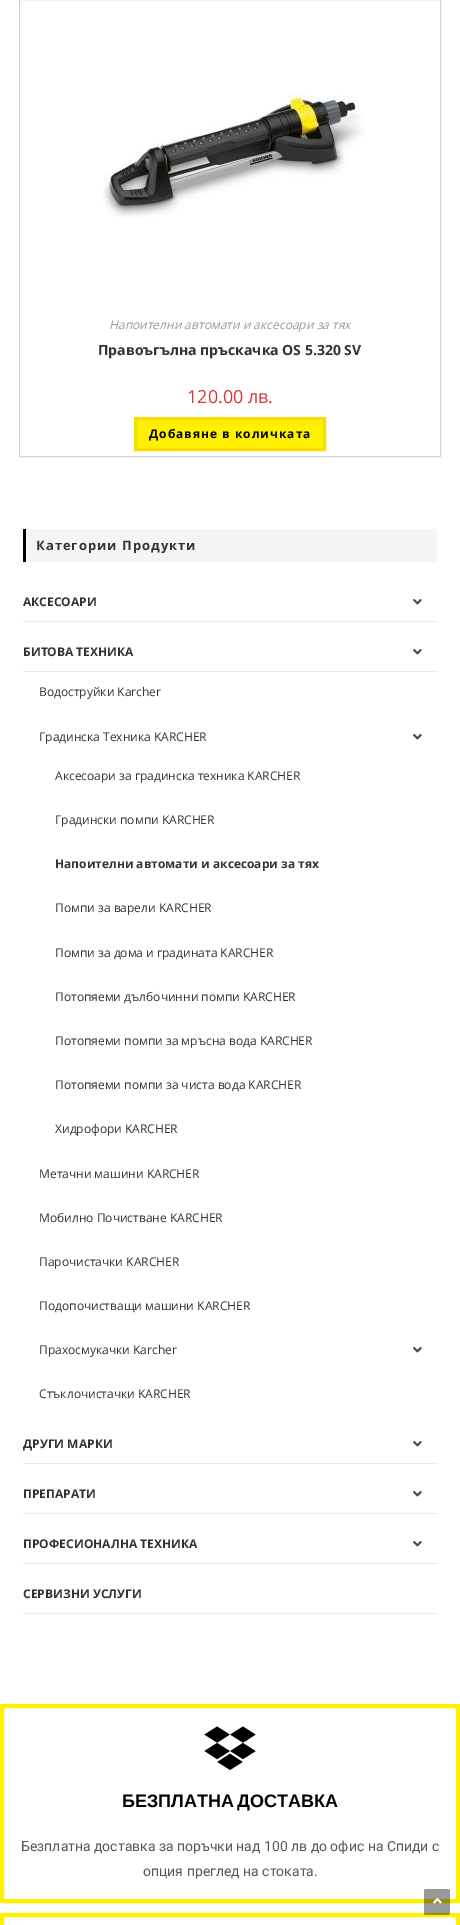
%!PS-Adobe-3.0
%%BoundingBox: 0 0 460 1925
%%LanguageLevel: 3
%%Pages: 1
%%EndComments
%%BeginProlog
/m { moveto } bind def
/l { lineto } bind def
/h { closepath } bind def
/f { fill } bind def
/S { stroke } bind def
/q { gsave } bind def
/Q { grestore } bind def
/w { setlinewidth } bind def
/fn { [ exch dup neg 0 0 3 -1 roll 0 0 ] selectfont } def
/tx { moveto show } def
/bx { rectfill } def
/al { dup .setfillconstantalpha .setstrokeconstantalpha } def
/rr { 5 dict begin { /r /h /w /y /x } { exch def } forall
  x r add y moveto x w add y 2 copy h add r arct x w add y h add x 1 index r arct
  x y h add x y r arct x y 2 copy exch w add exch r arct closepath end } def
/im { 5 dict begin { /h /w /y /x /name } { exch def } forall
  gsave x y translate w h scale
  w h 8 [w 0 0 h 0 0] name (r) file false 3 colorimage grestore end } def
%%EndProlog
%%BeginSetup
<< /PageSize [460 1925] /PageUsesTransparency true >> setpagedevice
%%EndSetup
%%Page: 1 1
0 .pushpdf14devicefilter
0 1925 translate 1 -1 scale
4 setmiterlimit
1 setgray
0 0 460 1925 bx
0.827 setgray
19.5 -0.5 421 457 rectstroke
(image0.raw) 103 94 261 123 im
/OpenSans-Italic 12 fn
0.6 setgray
(Напоителни автомати и аксесоари за тях) 109 329 tx
/OpenSans-Bold 14 fn
0.2 setgray
(Правоъгълна пръскачка OS 5.320 SV) 98 355 tx
/OpenSans-Regular 18 fn
0.867 0.2 0.2 setrgbcolor
(120.00 лв.) 187 403 tx
1 0.941 0 setrgbcolor
135.5 418.5 m 324.5 418.5 l 324.5 449.5 l 135.5 449.5 l h q f Q
0.969 0.871 0 setrgbcolor
3 w
S
/OpenSans-Bold 12 fn
0 setgray
149 438 m 1 0 (Добавяне в количката) ashow
0.961 setgray
26 529 411 33 bx
0 setgray
23 529 3 33 bx
/OpenSans-Bold 13 fn
0.2 setgray
36 550 m 1 0 (Категории Продукти) ashow
0.918 setgray
23 621 414 1 bx
/OpenSans-Bold 12 fn
0.2 setgray
(АКСЕСОАРИ) 23 606 tx
(image1.raw) 413 599 9 6 im
0.918 setgray
23 671 414 1 bx
0.2 setgray
(БИТОВА ТЕХНИКА) 23 656 tx
(image1.raw) 413 649 9 6 im
/OpenSans-Regular 12 fn
(Водоструйки Karcher) 39 696 tx
(Градинска Техника KARCHER) 39 741 tx
(image1.raw) 413 734 9 6 im
(Аксесоари за градинска техника KARCHER) 55 780 tx
(Градински помпи KARCHER) 55 824 tx
/OpenSans-Bold 12 fn
(Напоителни автомати и аксесоари за тях) 55 868 tx
/OpenSans-Regular 12 fn
(Помпи за варели KARCHER) 55 912 tx
(Помпи за дома и градината KARCHER) 55 957 tx
(Потопяеми дълбочинни помпи KARCHER) 55 1001 tx
(Потопяеми помпи за мръсна вода KARCHER) 55 1045 tx
(Потопяеми помпи за чиста вода KARCHER) 55 1089 tx
(Хидрофори KARCHER) 55 1133 tx
(Метачни машини KARCHER) 39 1178 tx
(Мобилно Почистване KARCHER) 39 1222 tx
(Парочистачки KARCHER) 39 1266 tx
(Подопочистващи машини KARCHER) 39 1310 tx
(Прахосмукачки Karcher) 39 1354 tx
(image1.raw) 413 1347 9 6 im
(Стъклочистачки KARCHER) 39 1398 tx
0.918 setgray
23 1463 414 1 bx
/OpenSans-Bold 12 fn
0.2 setgray
(ДРУГИ МАРКИ) 23 1448 tx
(image1.raw) 413 1441 9 6 im
0.918 setgray
23 1513 414 1 bx
0.2 setgray
(ПРЕПАРАТИ) 23 1498 tx
(image1.raw) 413 1491 9 6 im
0.918 setgray
23 1563 414 1 bx
0.2 setgray
(ПРОФЕСИОНАЛНА ТЕХНИКА) 23 1548 tx
(image1.raw) 413 1541 9 6 im
0.918 setgray
23 1613 414 1 bx
0.2 setgray
(СЕРВИЗНИ УСЛУГИ) 23 1598 tx
1 0.941 0 setrgbcolor
4 w
2 1706 456 195 rectstroke
(image2.raw) 204 1726 52 44 im
/LiberationSans-Bold 18 fn
0 setgray
122 1807 m -2 0 32 (БЕЗПЛАТНА ДОСТАВКА) widthshow
/Roboto-Regular 14 fn
0.329 0.349 0.373 setrgbcolor
(Безплатна доставка за поръчки над 100 лв до офис на Спиди с) 21 1851 tx
(опция преглед на стоката.) 143 1876 tx
1 0.941 0 setrgbcolor
2 1915 456 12 rectstroke
0.4 al
0 setgray
424 1889 26 26 2 rr f
1 al
(image3.raw) 433 1898 9 6 im
.poppdf14devicefilter showpage
%%EOF
